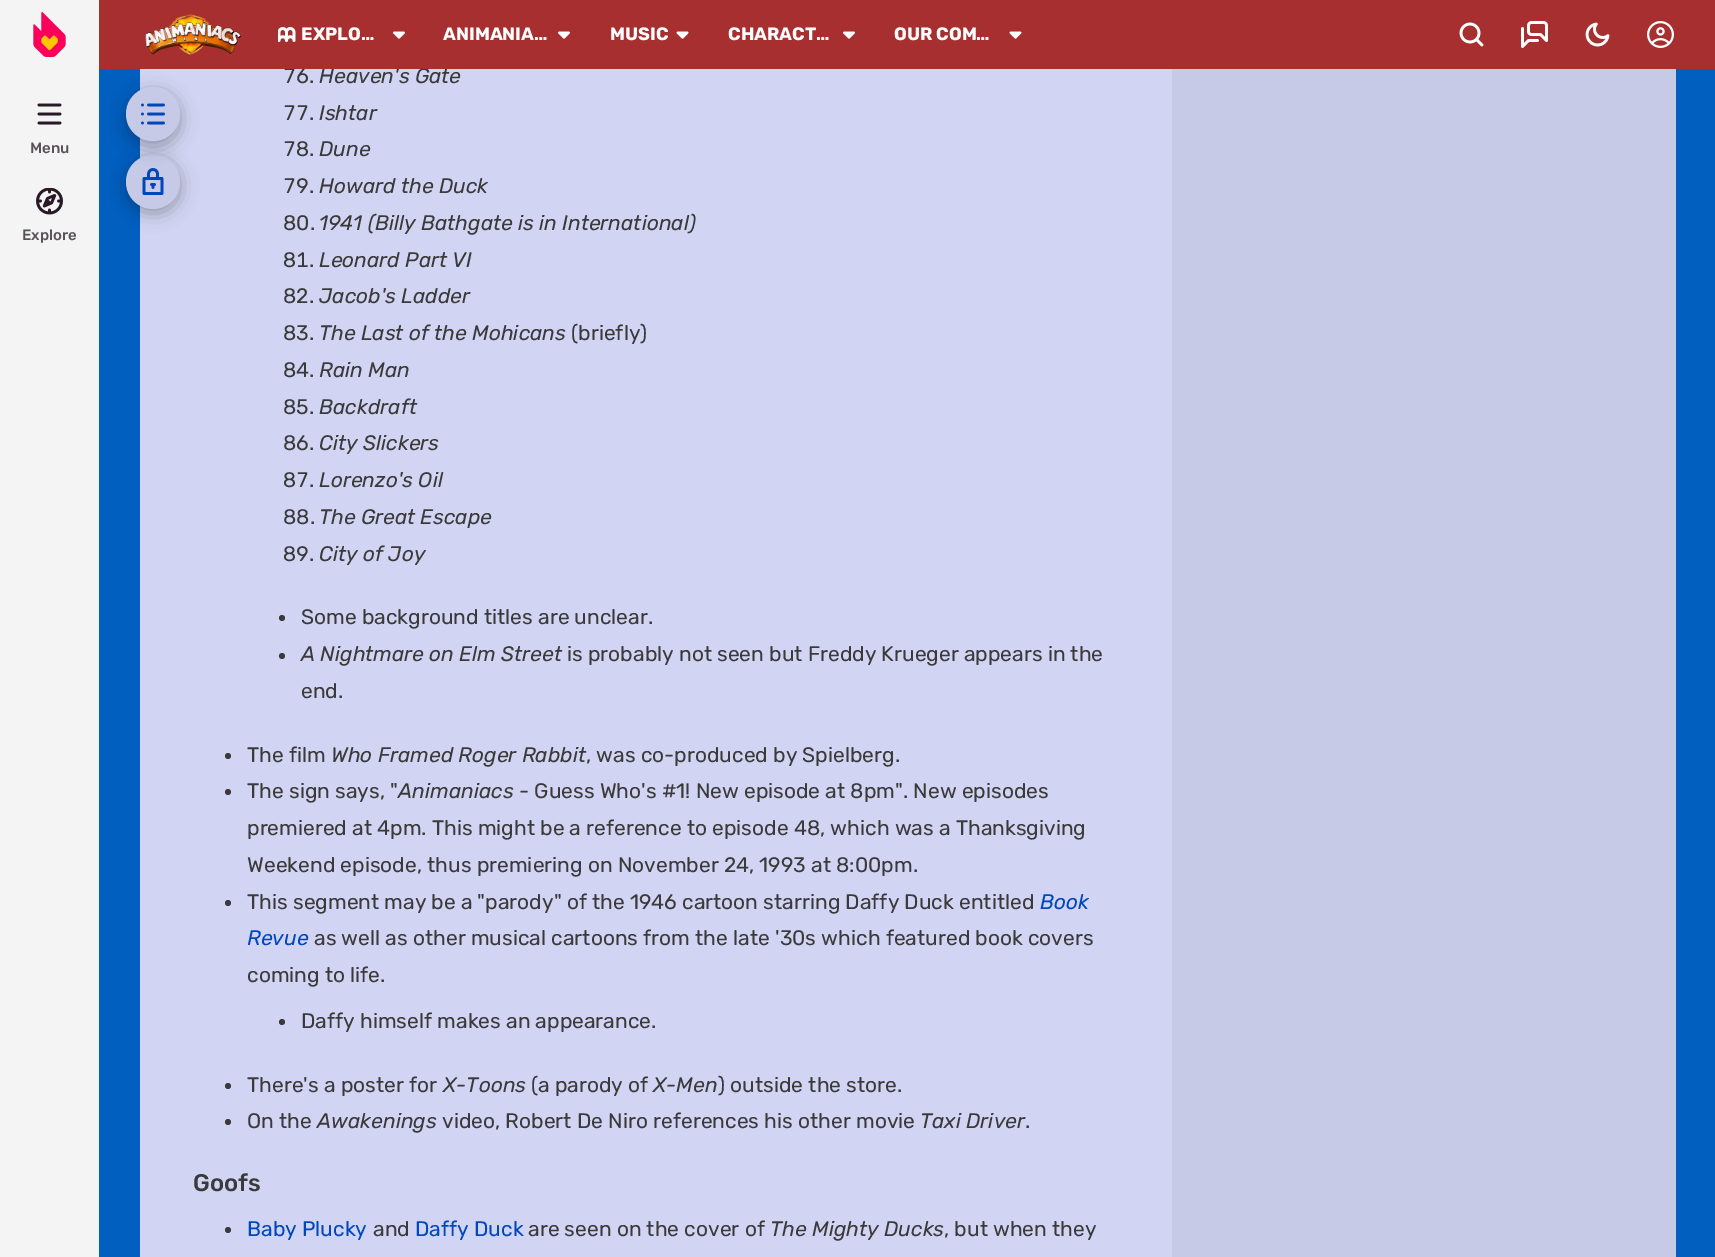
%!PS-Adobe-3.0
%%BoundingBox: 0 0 1715 1257
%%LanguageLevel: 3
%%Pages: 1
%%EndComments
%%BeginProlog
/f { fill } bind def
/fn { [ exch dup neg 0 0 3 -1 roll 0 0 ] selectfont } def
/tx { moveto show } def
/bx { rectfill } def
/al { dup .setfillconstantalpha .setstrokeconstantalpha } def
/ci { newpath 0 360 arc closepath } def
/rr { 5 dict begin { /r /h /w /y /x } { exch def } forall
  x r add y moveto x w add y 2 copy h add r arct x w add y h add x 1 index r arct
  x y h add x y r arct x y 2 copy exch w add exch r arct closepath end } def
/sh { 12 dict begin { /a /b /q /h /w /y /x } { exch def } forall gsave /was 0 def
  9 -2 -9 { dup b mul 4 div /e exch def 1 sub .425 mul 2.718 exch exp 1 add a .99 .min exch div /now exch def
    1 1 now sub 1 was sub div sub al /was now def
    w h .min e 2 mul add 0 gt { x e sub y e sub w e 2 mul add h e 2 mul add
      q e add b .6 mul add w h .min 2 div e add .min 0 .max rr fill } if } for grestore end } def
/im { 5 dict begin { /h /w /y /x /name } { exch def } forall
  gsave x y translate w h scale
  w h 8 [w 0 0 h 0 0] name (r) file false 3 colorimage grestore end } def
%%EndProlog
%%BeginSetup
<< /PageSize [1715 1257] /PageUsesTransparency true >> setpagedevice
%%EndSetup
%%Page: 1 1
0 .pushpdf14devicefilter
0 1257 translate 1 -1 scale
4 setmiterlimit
0 0.373 0.749 setrgbcolor
0 0 1715 1257 bx
0.82 0.835 0.953 setrgbcolor
140 69 1032 1188 bx
0 setgray
126 159 54 54 27 9 0.3 sh
0.78 0.792 0.906 setrgbcolor
153 182 27 ci f
(image12.raw) 142 168 22 27 im
0 setgray
126 92 54 54 27 9 0.3 sh
/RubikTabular-Regular 21 fn
0.227 setgray
(76.) 283 83 tx
/Rubik-Italic 21 fn
(Heaven's Gate) 319 83 tx
0.659 0.184 0.184 setrgbcolor
99 0 1616 69 bx
0.957 setgray
0 0 99 1257 bx
(image0.raw) 33 12 33 45 im
(image1.raw) 145 14 96 41 im
(image2.raw) 278 27 18 15 im
/Rubik-Bold 18 fn
1 setgray
(EXPLO…) 301 40 tx
(image3.raw) 393 31 12 8 im
(ANIMANIA…) 443 40 tx
(image3.raw) 558 31 12 8 im
(MUSIC) 610 40 tx
(image4.raw) 676 31 13 8 im
(CHARACT…) 728 40 tx
(image3.raw) 843 31 12 8 im
(OUR COM…) 894 40 tx
(image4.raw) 1009 31 13 8 im
(image5.raw) 1459 22 25 25 im
(image6.raw) 1521 21 27 27 im
(image7.raw) 1585 22 25 25 im
(image8.raw) 1647 21 27 27 im
(image9.raw) 37 103 25 22 im
/Rubik-Medium 15 fn
0.349 0.325 0.345 setrgbcolor
(Menu) 30 153 tx
(image10.raw) 36 188 27 27 im
(Explore) 22 240 tx
0.78 0.792 0.906 setrgbcolor
153 114 27 ci f
(image11.raw) 141 103 24 22 im
/RubikTabular-Regular 21 fn
0.227 setgray
(77.) 283 120 tx
/Rubik-Italic 21 fn
(Ishtar) 319 120 tx
/RubikTabular-Regular 21 fn
(78.) 283 156 tx
/Rubik-Italic 21 fn
(Dune) 319 156 tx
/RubikTabular-Regular 21 fn
(79.) 283 193 tx
/Rubik-Italic 21 fn
(Howard the Duck) 319 193 tx
/Rubik-Regular 21 fn
(80.) 283 230 tx
/Rubik-Italic 21 fn
(1941 \(Billy Bathgate is in International\)) 319 230 tx
/RubikTabular-Regular 21 fn
(81.) 283 267 tx
/Rubik-Italic 21 fn
(Leonard Part VI) 319 267 tx
/Rubik-Regular 21 fn
(82.) 283 303 tx
/Rubik-Italic 21 fn
(Jacob's Ladder) 319 303 tx
/Rubik-Regular 21 fn
(83.) 283 340 tx
/Rubik-Italic 21 fn
(The Last of the Mohicans) 319 340 tx
/Rubik-Regular 21 fn
(\(briefly\)) 571 340 tx
(84.) 283 377 tx
/Rubik-Italic 21 fn
(Rain Man) 319 377 tx
/Rubik-Regular 21 fn
(85.) 283 414 tx
/Rubik-Italic 21 fn
(Backdraft) 319 414 tx
/Rubik-Regular 21 fn
(86.) 283 450 tx
/Rubik-Italic 21 fn
(City Slickers) 319 450 tx
/RubikTabular-Regular 21 fn
(87.) 283 487 tx
/Rubik-Italic 21 fn
(Lorenzo's Oil) 319 487 tx
/Rubik-Regular 21 fn
(88.) 283 524 tx
/Rubik-Italic 21 fn
(The Great Escape) 319 524 tx
/RubikTabular-Regular 21 fn
(89.) 283 561 tx
/Rubik-Italic 21 fn
(City of Joy) 319 561 tx
282 618 3 ci f
/Rubik-Regular 21 fn
(Some background titles are unclear.) 301 624 tx
282 656 3 ci f
/Rubik-Italic 21 fn
(A Nightmare on Elm Street) 301 661 tx
/Rubik-Regular 21 fn
(is probably not seen but Freddy Krueger appears in the) 567 661 tx
(end.) 301 698 tx
228 756 3 ci f
(The film) 247 762 tx
/Rubik-Italic 21 fn
(Who Framed Roger Rabbit) 331 762 tx
/Rubik-Regular 21 fn
(, was co-produced by Spielberg.) 586 762 tx
228 792 3 ci f
(The sign says, ") 247 798 tx
/Rubik-Italic 21 fn
(Animaniacs) 398 798 tx
/Rubik-Regular 21 fn
(- Guess Who's #1! New episode at 8pm". New episodes) 519 798 tx
(premiered at 4pm. This might be a reference to episode 48, which was a Thanksgiving) 247 835 tx
(Weekend episode, thus premiering on November 24, 1993 at 8:00pm.) 247 872 tx
228 903 3 ci f
(This segment may be a "parody" of the 1946 cartoon starring Daffy Duck entitled) 247 909 tx
/Rubik-Italic 21 fn
0 0.278 0.733 setrgbcolor
(Book) 1040 909 tx
(Revue) 247 945 tx
/Rubik-Regular 21 fn
0.227 setgray
(as well as other musical cartoons from the late '30s which featured book covers) 314 945 tx
(coming to life.) 247 982 tx
282 1022 3 ci f
(Daffy himself makes an appearance.) 301 1028 tx
228 1086 3 ci f
(There's a poster for) 247 1092 tx
/Rubik-Italic 21 fn
(X-Toons) 443 1092 tx
/Rubik-Regular 21 fn
(\(a parody of) 531 1092 tx
/Rubik-Italic 21 fn
(X-Men) 653 1092 tx
/Rubik-Regular 21 fn
(\) outside the store.) 718 1092 tx
228 1122 3 ci f
(On the) 247 1128 tx
/Rubik-Italic 21 fn
(Awakenings) 317 1128 tx
/Rubik-Regular 21 fn
(video, Robert De Niro references his other movie) 442 1128 tx
/Rubik-Italic 21 fn
(Taxi Driver) 920 1128 tx
/Rubik-Regular 21 fn
(.) 1025 1128 tx
/Rubik-Medium 24 fn
(Goofs) 193 1191 tx
228 1230 3 ci f
/Rubik-Regular 21 fn
0 0.278 0.733 setrgbcolor
(Baby Plucky) 247 1236 tx
0.227 setgray
(and) 373 1236 tx
0 0.278 0.733 setrgbcolor
(Daffy Duck) 415 1236 tx
0.227 setgray
(are seen on the cover of) 528 1236 tx
/Rubik-Italic 21 fn
(The Mighty Ducks) 770 1236 tx
/Rubik-Regular 21 fn
(, but when they) 944 1236 tx
0.78 0.792 0.906 setrgbcolor
1172 69 504 1188 bx
.poppdf14devicefilter showpage
%%EOF
